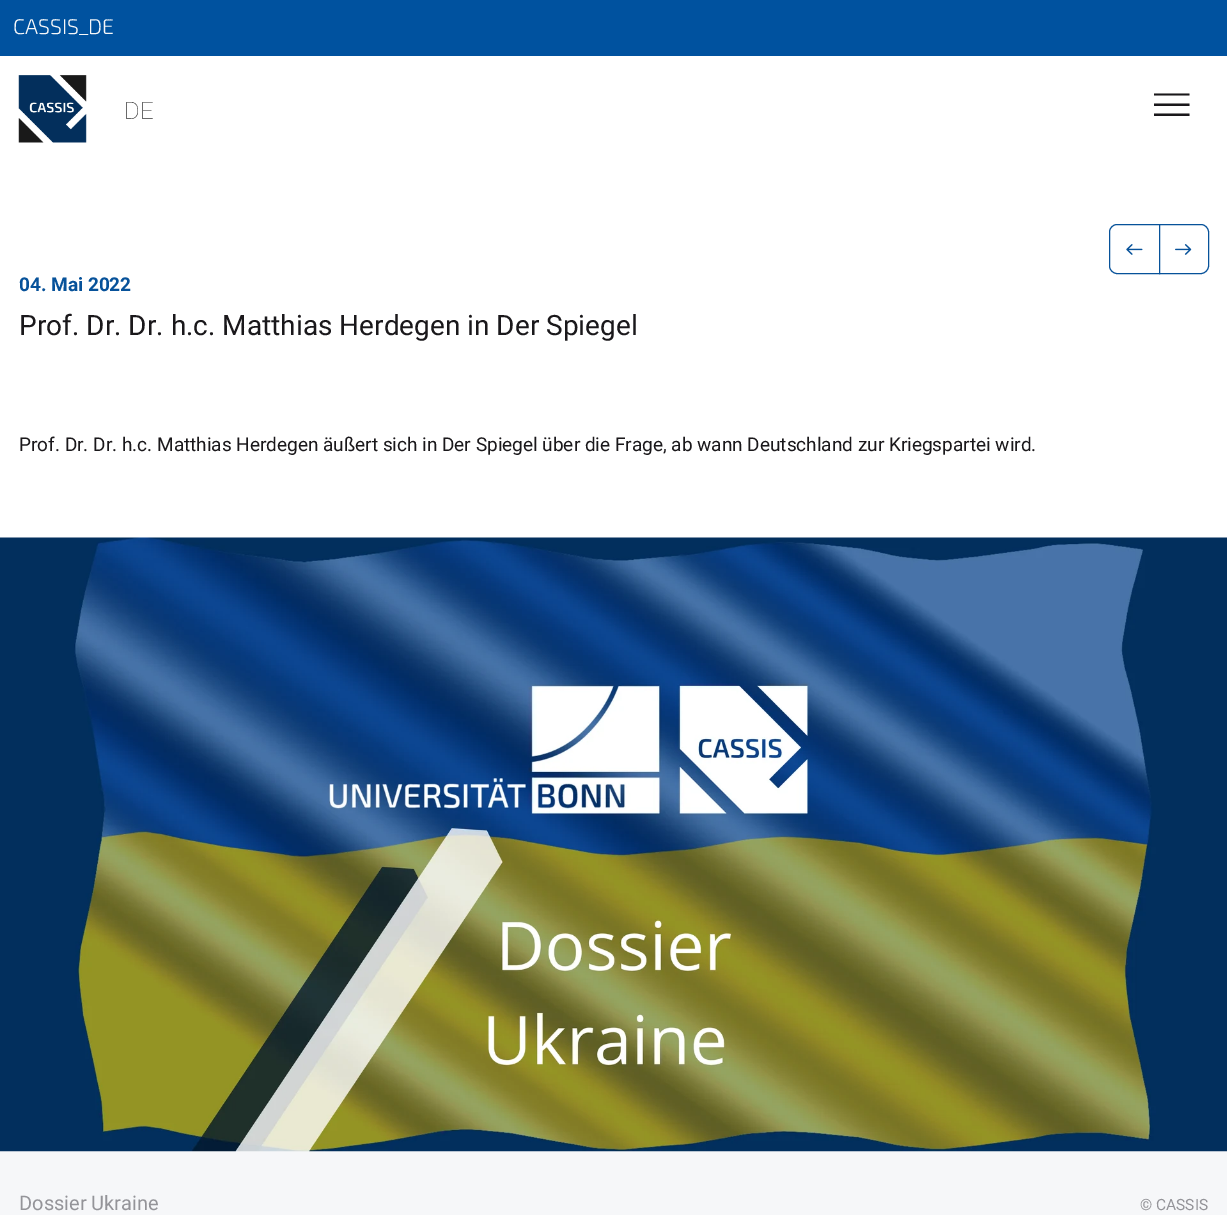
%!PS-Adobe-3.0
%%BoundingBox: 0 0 1227 1215
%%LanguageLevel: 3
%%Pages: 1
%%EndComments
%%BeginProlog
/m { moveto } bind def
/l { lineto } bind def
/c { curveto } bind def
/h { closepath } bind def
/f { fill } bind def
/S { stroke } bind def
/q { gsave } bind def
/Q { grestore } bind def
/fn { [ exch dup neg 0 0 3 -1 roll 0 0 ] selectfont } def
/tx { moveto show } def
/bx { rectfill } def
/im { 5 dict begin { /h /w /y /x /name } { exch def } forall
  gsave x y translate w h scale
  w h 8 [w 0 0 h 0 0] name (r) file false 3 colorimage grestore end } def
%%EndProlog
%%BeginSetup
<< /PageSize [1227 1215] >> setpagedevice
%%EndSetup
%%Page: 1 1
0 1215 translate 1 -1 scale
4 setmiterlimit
1 setgray
0 0 1227 1215 bx
0 0.322 0.624 setrgbcolor
0 0 1227 56 bx
/Exo2-Light 21.25 fn
0.965 0.969 0.976 setrgbcolor
(CASSIS_DE) 13 34 tx
(image0.raw) 18 75 69 68 im
/Roboto-Thin 24 fn
0.2 setgray
(DE) 124 119 tx
0.102 0.094 0.106 setrgbcolor
1154 116 m 1189.5 116 l 1189.5 113.5 l 1154 113.5 l h 1154 106 m 1189.5 106 l 1189.5 103.5 l 1154 103.5 l h 1154 93.5 m 1154 95.5 l 1189.5 95.5 l 1189.5 93.5 l h f
0.027 0.322 0.604 setrgbcolor
1117 224.5 m 1159.5 224.5 l 1159.5 273.5 l 1117 273.5 l 1113 273.5 1109.5 270 1109.5 266 c 1109.5 232 l 1109.5 228 1113 224.5 1117 224.5 c h S
(image1.raw) 1126 244 17 11 im
1 setgray
1159.5 224.5 m 1201 224.5 l 1205 224.5 1208.5 228 1208.5 232 c 1208.5 266 l 1208.5 270 1205 273.5 1201 273.5 c 1159.5 273.5 l h q f Q
0.027 0.322 0.604 setrgbcolor
S
(image2.raw) 1175 244 17 11 im
/Roboto-Bold 19 fn
(04. Mai 2022) 19 291 tx
/Roboto-Regular 28 fn
0.102 0.094 0.106 setrgbcolor
(Prof. Dr. Dr. h.c. Matthias Herdegen in Der Spiegel) 19 335 tx
/Roboto-Regular 19 fn
(Prof. Dr. Dr. h.c. Matthias Herdegen äußert sich in Der Spiegel über die Frage, ab wann Deutschland zur Kriegspartei wird.) 19 451 tx
0.965 0.969 0.976 setrgbcolor
0 1151 1227 64 bx
(image3.raw) 0 537 1227 615 im
/Roboto-Regular 20 fn
0.58 0.58 0.6 setrgbcolor
(Dossier Ukraine) 19 1210 tx
/Roboto-Regular 15.5 fn
(© CASSIS) 1140 1210 tx
showpage
%%EOF
